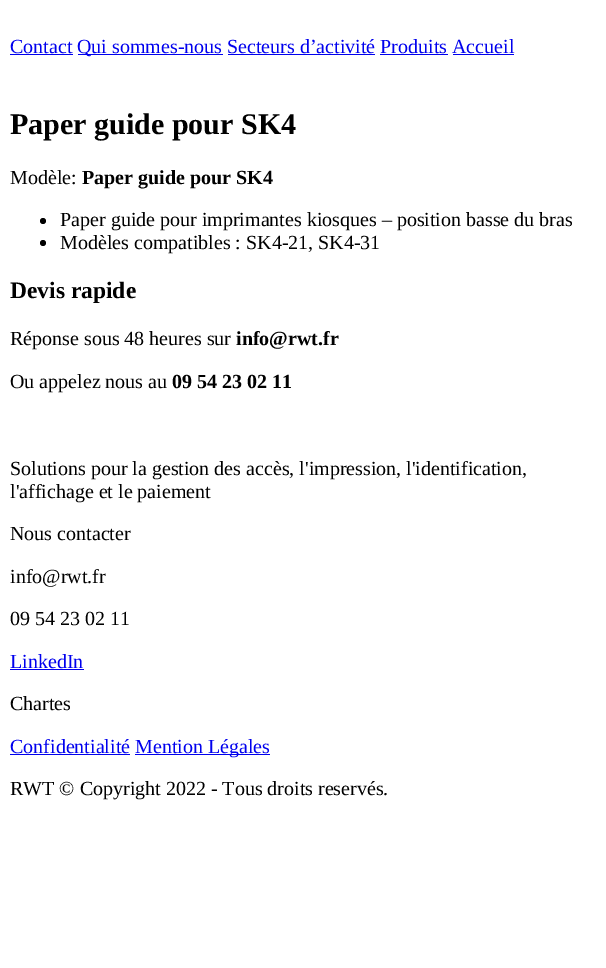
%!PS-Adobe-3.0
%%BoundingBox: 0 0 606 968
%%LanguageLevel: 3
%%Pages: 1
%%EndComments
%%BeginProlog
/f { fill } bind def
/fn { [ exch dup neg 0 0 3 -1 roll 0 0 ] selectfont } def
/tx { moveto show } def
/bx { rectfill } def
/ci { newpath 0 360 arc closepath } def
%%EndProlog
%%BeginSetup
<< /PageSize [606 968] >> setpagedevice
%%EndSetup
%%Page: 1 1
0 968 translate 1 -1 scale
4 setmiterlimit
1 setgray
0 0 606 968 bx
/LiberationSerif-Regular 20 fn
0 0 0.933 setrgbcolor
(Contact) 10 53 tx
10 54 63 1 bx
78 54 145 1 bx
(Qui sommes-nous Secteurs d’activité Produits Accueil) 77 53 tx
228 54 147 1 bx
380 54 68 1 bx
453 54 61 1 bx
/LiberationSerif-Bold 30 fn
0 setgray
(Paper guide pour SK4) 10 134 tx
/LiberationSerif-Regular 20 fn
(Modèle:) 10 184 tx
/LiberationSerif-Bold 20 fn
(Paper guide pour SK4) 82 184 tx
43 221 3 ci f
/LiberationSerif-Regular 20 fn
(Paper guide pour imprimantes kiosques – position basse du bras) 60 226 tx
43 243 3 ci f
(Modèles compatibles : SK4-21, SK4-31) 60 249 tx
/LiberationSerif-Bold 23.5 fn
(Devis rapide) 10 298 tx
/LiberationSerif-Regular 20 fn
(Réponse sous 48 heures sur) 10 345 tx
/LiberationSerif-Bold 20 fn
(info@rwt.fr) 236 345 tx
/LiberationSerif-Regular 20 fn
(Ou appelez nous au) 10 388 tx
/LiberationSerif-Bold 20 fn
(09 54 23 02 11) 172 388 tx
/LiberationSerif-Regular 20 fn
(Solutions pour la gestion des accès, l'impression, l'identification,) 10 475 tx
(l'affichage et le paiement) 10 498 tx
(Nous contacter) 10 540 tx
(info@rwt.fr) 10 583 tx
(09 54 23 02 11) 10 625 tx
0 0 0.933 setrgbcolor
(LinkedIn) 10 668 tx
10 669 74 1 bx
0 setgray
(Chartes) 10 710 tx
0 0 0.933 setrgbcolor
(Confidentialité) 10 753 tx
10 754 120 1 bx
135 754 135 1 bx
(Mention Légales) 135 753 tx
0 setgray
(RWT © Copyright 2022 - Tous droits reservés.) 10 795 tx
showpage
%%EOF
